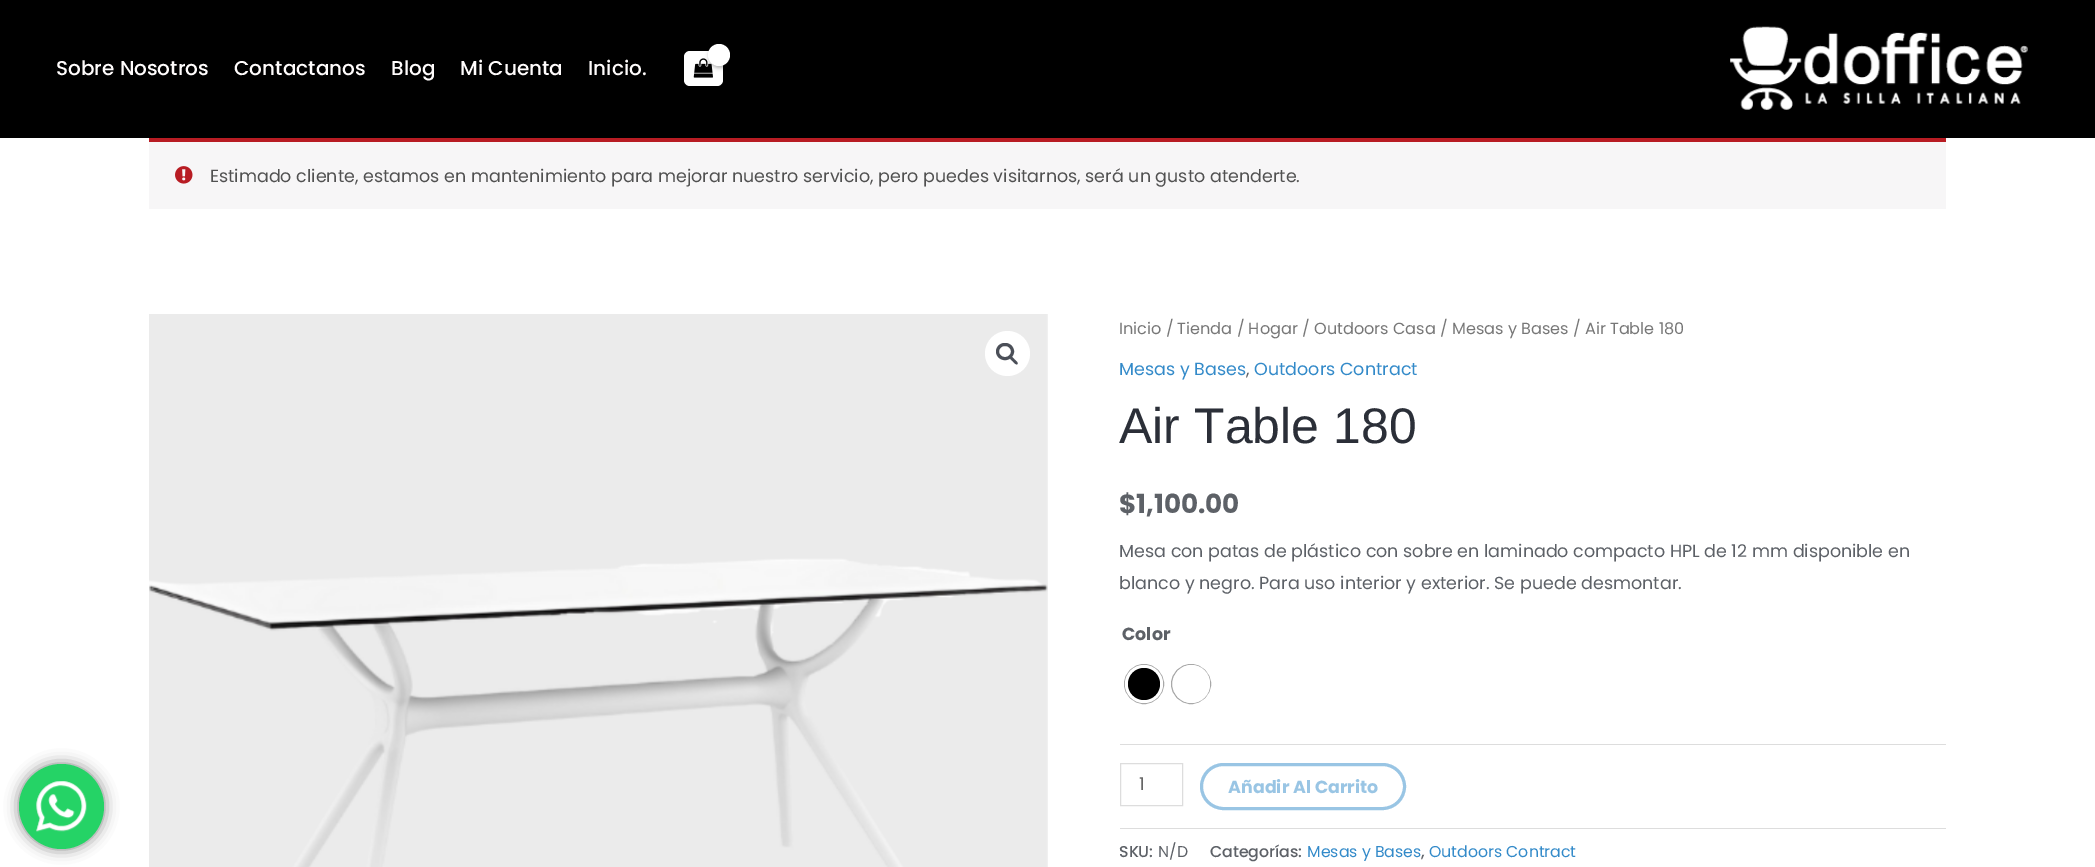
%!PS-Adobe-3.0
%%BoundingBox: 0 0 2095 867
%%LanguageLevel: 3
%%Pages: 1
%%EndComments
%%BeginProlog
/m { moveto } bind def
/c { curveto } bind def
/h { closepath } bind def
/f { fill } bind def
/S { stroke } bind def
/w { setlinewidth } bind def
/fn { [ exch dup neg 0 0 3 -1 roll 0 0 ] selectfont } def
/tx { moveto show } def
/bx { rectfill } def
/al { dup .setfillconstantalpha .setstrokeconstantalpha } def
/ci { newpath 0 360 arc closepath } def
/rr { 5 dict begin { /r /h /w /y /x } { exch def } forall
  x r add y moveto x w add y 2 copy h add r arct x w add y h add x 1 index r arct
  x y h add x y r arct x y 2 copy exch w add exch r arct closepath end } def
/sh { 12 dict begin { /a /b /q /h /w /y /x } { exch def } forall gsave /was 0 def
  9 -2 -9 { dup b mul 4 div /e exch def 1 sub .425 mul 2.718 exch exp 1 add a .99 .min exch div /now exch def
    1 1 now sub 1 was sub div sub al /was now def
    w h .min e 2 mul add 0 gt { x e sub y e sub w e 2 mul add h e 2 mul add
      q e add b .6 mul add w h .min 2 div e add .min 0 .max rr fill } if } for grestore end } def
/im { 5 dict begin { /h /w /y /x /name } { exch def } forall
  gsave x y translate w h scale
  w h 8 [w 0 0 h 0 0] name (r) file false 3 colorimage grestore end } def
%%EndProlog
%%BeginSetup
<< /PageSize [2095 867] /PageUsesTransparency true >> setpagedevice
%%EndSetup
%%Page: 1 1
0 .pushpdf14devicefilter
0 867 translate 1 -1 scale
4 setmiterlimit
1 setgray
0 0 2095 867 bx
0 setgray
0 0 2095 138 bx
/Poppins-Medium 20 fn
1 0.988 0.988 setrgbcolor
(Sobre Nosotros) 56 75 tx
(Contactanos) 234 75 tx
(Blog) 391 75 tx
(Mi Cuenta) 460 75 tx
(Inicio.) 588 75 tx
1 setgray
684 51 39 35 6 rr f
(image0.raw) 693 58 20 20 im
0 setgray
709 45 22 23 11 2 0.3 sh
1 setgray
719 55 11 ci f
(image1.raw) 1730 26 298 84 im
0.969 0.965 0.969 setrgbcolor
149 142 1797 67 bx
0.722 0.11 0.137 setrgbcolor
149 138 1797 4 bx
(image2.raw) 175 166 18 18 im
/Poppins-Regular 17.5 fn
0.318 setgray
(Estimado cliente, estamos en mantenimiento para mejorar nuestro servicio, pero puedes visitarnos, será un gusto atenderte.) 210 182 tx
(image3.raw) 149 314 899 553 im
1 setgray
1007.5 353.5 22.5 ci f
0.294 0.31 0.345 setrgbcolor
3 w
997.5 344.5 15 14 7 rr S
1010 357 m 1011.5 355.5 1014 359 1014.5 359.5 c 1015.5 360.5 1018.5 362.5 1017.5 364 c 1016 365.5 1013.5 362 1013 361.5 c 1012 360.5 1009 358.5 1010 357 c h f
/Poppins-Regular 16.1 fn
0.467 setgray
(Inicio / Tienda / Hogar / Outdoors Casa / Mesas y Bases / Air Table 180) 1119 334 tx
/Poppins-Regular 17.5 fn
0.2 0.541 0.788 setrgbcolor
(Mesas y Bases) 1119 375 tx
0.365 0.38 0.404 setrgbcolor
(,) 1246 375 tx
0.2 0.541 0.788 setrgbcolor
(Outdoors Contract) 1254 375 tx
/LiberationSans-Regular 50 fn
0.169 0.184 0.22 setrgbcolor
(Air Table 180) 1119 443 tx
/Poppins-Bold 26.25 fn
0.365 0.38 0.404 setrgbcolor
($1,100.00) 1119 513 tx
/Poppins-Regular 17.5 fn
(Mesa con patas de plástico con sobre en laminado compacto HPL de 12 mm disponible en) 1119 557 tx
(blanco y negro. Para uso interior y exterior. Se puede desmontar.) 1119 589 tx
0.867 setgray
1120 744 826 1 bx
/Poppins-Bold 17.5 fn
0.365 0.38 0.404 setrgbcolor
(Color) 1122 640 tx
0.659 setgray
1 w
1144 684 19.5 ci S
1 setgray
1144 684 19 ci f
0 setgray
1144 684 16 ci f
0.659 setgray
1191 684 19.5 ci S
1 setgray
1173 665 37 38 18.5 rr f
0.867 setgray
1120.5 763.5 62 42 rectstroke
/Poppins-Regular 17.5 fn
0.4 setgray
(1) 1139 790 tx
0.6 0.773 0.894 setrgbcolor
3 w
1201.5 764.5 203 44 22 rr S
/Poppins-Bold 17.5 fn
(Añadir Al Carrito) 1228 793 tx
0.867 setgray
1120 828 826 1 bx
/Poppins-Medium 15.75 fn
0.365 0.38 0.404 setrgbcolor
(SKU:) 1119 857 tx
/Poppins-Regular 15.75 fn
(N/D) 1158 857 tx
/Poppins-Medium 15.75 fn
(Categorías:) 1210 857 tx
/Poppins-Regular 15.75 fn
0.2 0.541 0.788 setrgbcolor
(Mesas y Bases) 1307 857 tx
/Poppins-Medium 15.75 fn
0.365 0.38 0.404 setrgbcolor
(,) 1421 857 tx
/Poppins-Regular 15.75 fn
0.2 0.541 0.788 setrgbcolor
(Outdoors Contract) 1429 857 tx
0 setgray
19 764 85 85 42.5 7 0.5 sh
0.145 0.827 0.4 setrgbcolor
61.5 806.5 42.5 ci f
(image4.raw) 36 781 51 51 im
.poppdf14devicefilter showpage
%%EOF
